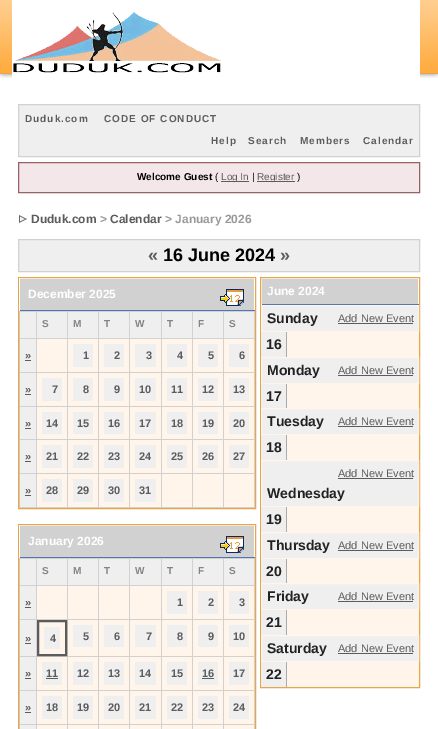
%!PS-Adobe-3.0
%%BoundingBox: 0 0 438 729
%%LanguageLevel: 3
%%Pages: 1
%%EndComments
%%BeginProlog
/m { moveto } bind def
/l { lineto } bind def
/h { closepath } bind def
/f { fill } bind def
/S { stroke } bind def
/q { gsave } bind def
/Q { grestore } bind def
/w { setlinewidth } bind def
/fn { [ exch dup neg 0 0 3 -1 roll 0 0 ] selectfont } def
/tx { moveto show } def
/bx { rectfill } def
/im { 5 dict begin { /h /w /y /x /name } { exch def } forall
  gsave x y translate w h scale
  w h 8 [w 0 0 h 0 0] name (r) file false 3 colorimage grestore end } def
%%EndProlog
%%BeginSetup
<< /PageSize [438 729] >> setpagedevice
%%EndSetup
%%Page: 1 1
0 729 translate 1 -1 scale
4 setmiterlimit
1 setgray
0 0 438 729 bx
(image0.raw) 0 0 12 78 im
(image1.raw) 13 12 208 61 im
(image2.raw) 420 0 18 78 im
0.937 setgray
18.5 104.5 m 419.5 104.5 l 419.5 156.5 l 18.5 156.5 l h q f Q
0.82 setgray
S
/LiberationSans-Bold 10 fn
0.361 setgray
25 122 m 1 0 (Duduk.com) ashow
104 122 m 1 0 (CODE OF CONDUCT) ashow
211 144 m 1 0 (Help) ashow
248 144 m 1 0 (Search) ashow
300 144 m 1 0 (Members) ashow
363 144 m 1 0 (Calendar) ashow
0.957 0.906 0.918 setrgbcolor
18.5 162.5 m 419.5 162.5 l 419.5 192.5 l 18.5 192.5 l h q f Q
0.596 0.384 0.396 setrgbcolor
S
0 setgray
(Welcome Guest) 137 180 tx
/LiberationSans-Regular 10 fn
(\() 215 180 tx
0.361 setgray
221 181 28 1 bx
(Log In) 221 180 tx
0 setgray
(|) 252 180 tx
0.361 setgray
257 181 38 1 bx
(Register) 257 180 tx
0 setgray
(\)) 297 180 tx
(image3.raw) 19 215 8 8 im
/LiberationSans-Bold 12 fn
0.361 setgray
(Duduk.com) 31 223 tx
0.6 setgray
(>) 100 223 tx
0.361 setgray
(Calendar) 110 223 tx
0.6 setgray
(> January 2026) 165 223 tx
0.937 setgray
18.5 239.5 m 419.5 239.5 l 419.5 271.5 l 18.5 271.5 l h q f Q
0.82 setgray
S
/LiberationSans-Bold 18 fn
0.361 setgray
(«) 148 261 tx
0 setgray
(16 June 2024) 163 261 tx
0.361 setgray
(») 280 261 tx
0.82 setgray
19 279 236 229 bx
0.906 0.651 0.29 setrgbcolor
18.5 277.5 237 231 rectstroke
1 setgray
254 278 1 33 bx
0.318 0.463 0.71 setrgbcolor
19 310 236 1 bx
1 setgray
19 278 1 33 bx
/LiberationSans-Bold 12 fn
(December 2025) 28 298 tx
(image4.raw) 220 289 24 17 im
0.937 setgray
20 312 16 26 bx
37 312 30 26 bx
/LiberationSans-Bold 10 fn
0.518 setgray
42 327 m 1 0 (S) ashow
0.937 setgray
68 312 30 26 bx
0.518 setgray
73 327 m 1 0 (M) ashow
0.937 setgray
99 312 30 26 bx
0.518 setgray
104 327 m 1 0 (T) ashow
0.937 setgray
130 312 31 26 bx
0.518 setgray
135 327 m 1 0 (W) ashow
0.937 setgray
162 312 30 26 bx
0.518 setgray
167 327 m 1 0 (T) ashow
0.937 setgray
193 312 30 26 bx
0.518 setgray
198 327 m 1 0 (F) ashow
0.937 setgray
224 312 30 26 bx
0.518 setgray
229 327 m 1 0 (S) ashow
0.937 setgray
20 339 16 33 bx
/LiberationSans-Bold 11 fn
0.361 setgray
(») 25 359 tx
25 360 6 1 bx
1 0.961 0.918 setrgbcolor
37 339 30 33 bx
68 339 30 33 bx
0.937 setgray
73 344 20 23 bx
0.361 setgray
(1) 83 359 tx
1 0.961 0.918 setrgbcolor
99 339 30 33 bx
0.937 setgray
104 344 20 23 bx
0.361 setgray
(2) 114 359 tx
1 0.961 0.918 setrgbcolor
130 339 31 33 bx
0.937 setgray
135 344 21 23 bx
0.361 setgray
(3) 146 359 tx
1 0.961 0.918 setrgbcolor
162 339 30 33 bx
0.937 setgray
167 344 20 23 bx
0.361 setgray
(4) 177 359 tx
1 0.961 0.918 setrgbcolor
193 339 30 33 bx
0.937 setgray
198 344 20 23 bx
0.361 setgray
(5) 208 359 tx
1 0.961 0.918 setrgbcolor
224 339 30 33 bx
0.937 setgray
229 344 20 23 bx
0.361 setgray
(6) 239 359 tx
0.937 setgray
20 373 16 33 bx
0.361 setgray
(») 25 393 tx
25 394 6 1 bx
1 0.961 0.918 setrgbcolor
37 373 30 33 bx
0.937 setgray
42 378 20 23 bx
0.361 setgray
(7) 52 393 tx
1 0.961 0.918 setrgbcolor
68 373 30 33 bx
0.937 setgray
73 378 20 23 bx
0.361 setgray
(8) 83 393 tx
1 0.961 0.918 setrgbcolor
99 373 30 33 bx
0.937 setgray
104 378 20 23 bx
0.361 setgray
(9) 114 393 tx
1 0.961 0.918 setrgbcolor
130 373 31 33 bx
0.937 setgray
135 378 21 23 bx
0.361 setgray
(10) 139 393 tx
1 0.961 0.918 setrgbcolor
162 373 30 33 bx
0.937 setgray
167 378 20 23 bx
0.361 setgray
(11) 171 393 tx
1 0.961 0.918 setrgbcolor
193 373 30 33 bx
0.937 setgray
198 378 20 23 bx
0.361 setgray
(12) 202 393 tx
1 0.961 0.918 setrgbcolor
224 373 30 33 bx
0.937 setgray
229 378 20 23 bx
0.361 setgray
(13) 233 393 tx
0.937 setgray
20 407 16 32 bx
0.361 setgray
(») 25 427 tx
25 428 6 1 bx
1 0.961 0.918 setrgbcolor
37 407 30 32 bx
0.937 setgray
42 412 20 22 bx
0.361 setgray
(14) 46 427 tx
1 0.961 0.918 setrgbcolor
68 407 30 32 bx
0.937 setgray
73 412 20 22 bx
0.361 setgray
(15) 77 427 tx
1 0.961 0.918 setrgbcolor
99 407 30 32 bx
0.937 setgray
104 412 20 22 bx
0.361 setgray
(16) 108 427 tx
1 0.961 0.918 setrgbcolor
130 407 31 32 bx
0.937 setgray
135 412 21 22 bx
0.361 setgray
(17) 139 427 tx
1 0.961 0.918 setrgbcolor
162 407 30 32 bx
0.937 setgray
167 412 20 22 bx
0.361 setgray
(18) 171 427 tx
1 0.961 0.918 setrgbcolor
193 407 30 32 bx
0.937 setgray
198 412 20 22 bx
0.361 setgray
(19) 202 427 tx
1 0.961 0.918 setrgbcolor
224 407 30 32 bx
0.937 setgray
229 412 20 22 bx
0.361 setgray
(20) 233 427 tx
0.937 setgray
20 440 16 33 bx
0.361 setgray
(») 25 460 tx
25 461 6 1 bx
1 0.961 0.918 setrgbcolor
37 440 30 33 bx
0.937 setgray
42 445 20 23 bx
0.361 setgray
(21) 46 460 tx
1 0.961 0.918 setrgbcolor
68 440 30 33 bx
0.937 setgray
73 445 20 23 bx
0.361 setgray
(22) 77 460 tx
1 0.961 0.918 setrgbcolor
99 440 30 33 bx
0.937 setgray
104 445 20 23 bx
0.361 setgray
(23) 108 460 tx
1 0.961 0.918 setrgbcolor
130 440 31 33 bx
0.937 setgray
135 445 21 23 bx
0.361 setgray
(24) 139 460 tx
1 0.961 0.918 setrgbcolor
162 440 30 33 bx
0.937 setgray
167 445 20 23 bx
0.361 setgray
(25) 171 460 tx
1 0.961 0.918 setrgbcolor
193 440 30 33 bx
0.937 setgray
198 445 20 23 bx
0.361 setgray
(26) 202 460 tx
1 0.961 0.918 setrgbcolor
224 440 30 33 bx
0.937 setgray
229 445 20 23 bx
0.361 setgray
(27) 233 460 tx
0.937 setgray
20 474 16 33 bx
0.361 setgray
(») 25 494 tx
25 495 6 1 bx
1 0.961 0.918 setrgbcolor
37 474 30 33 bx
0.937 setgray
42 479 20 23 bx
0.361 setgray
(28) 46 494 tx
1 0.961 0.918 setrgbcolor
68 474 30 33 bx
0.937 setgray
73 479 20 23 bx
0.361 setgray
(29) 77 494 tx
1 0.961 0.918 setrgbcolor
99 474 30 33 bx
0.937 setgray
104 479 20 23 bx
0.361 setgray
(30) 108 494 tx
1 0.961 0.918 setrgbcolor
130 474 31 33 bx
0.937 setgray
135 479 21 23 bx
0.361 setgray
(31) 139 494 tx
1 0.961 0.918 setrgbcolor
162 474 30 33 bx
193 474 30 33 bx
224 474 30 33 bx
0.82 setgray
19 526 236 203 bx
0.906 0.651 0.29 setrgbcolor
18.5 524.5 237 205 rectstroke
1 setgray
254 525 1 33 bx
0.318 0.463 0.71 setrgbcolor
19 557 236 1 bx
1 setgray
19 525 1 33 bx
/LiberationSans-Bold 12 fn
(January 2026) 28 545 tx
(image4.raw) 220 536 24 17 im
0.937 setgray
20 559 16 26 bx
37 559 30 26 bx
/LiberationSans-Bold 10 fn
0.518 setgray
42 574 m 1 0 (S) ashow
0.937 setgray
68 559 30 26 bx
0.518 setgray
73 574 m 1 0 (M) ashow
0.937 setgray
99 559 30 26 bx
0.518 setgray
104 574 m 1 0 (T) ashow
0.937 setgray
130 559 31 26 bx
0.518 setgray
135 574 m 1 0 (W) ashow
0.937 setgray
162 559 30 26 bx
0.518 setgray
167 574 m 1 0 (T) ashow
0.937 setgray
193 559 30 26 bx
0.518 setgray
198 574 m 1 0 (F) ashow
0.937 setgray
224 559 30 26 bx
0.518 setgray
229 574 m 1 0 (S) ashow
0.937 setgray
20 586 16 33 bx
/LiberationSans-Bold 11 fn
0.361 setgray
(») 25 606 tx
25 607 6 1 bx
1 0.961 0.918 setrgbcolor
37 586 30 33 bx
68 586 30 33 bx
99 586 30 33 bx
130 586 31 33 bx
162 586 30 33 bx
0.937 setgray
167 591 20 23 bx
0.361 setgray
(1) 177 606 tx
1 0.961 0.918 setrgbcolor
193 586 30 33 bx
0.937 setgray
198 591 20 23 bx
0.361 setgray
(2) 208 606 tx
1 0.961 0.918 setrgbcolor
224 586 30 33 bx
0.937 setgray
229 591 20 23 bx
0.361 setgray
(3) 239 606 tx
0.937 setgray
20 620 16 36 bx
0.361 setgray
(») 25 642 tx
25 643 6 1 bx
1 0.961 0.918 setrgbcolor
38 621 m 66 621 l 66 655 l 38 655 l h q f Q
0.361 setgray
2 w
S
0.937 setgray
44 627 16 22 bx
0.361 setgray
(4) 50 642 tx
1 0.961 0.918 setrgbcolor
68 620 30 36 bx
0.937 setgray
73 625 20 22 bx
0.361 setgray
(5) 83 640 tx
1 0.961 0.918 setrgbcolor
99 620 30 36 bx
0.937 setgray
104 625 20 22 bx
0.361 setgray
(6) 114 640 tx
1 0.961 0.918 setrgbcolor
130 620 31 36 bx
0.937 setgray
135 625 21 22 bx
0.361 setgray
(7) 146 640 tx
1 0.961 0.918 setrgbcolor
162 620 30 36 bx
0.937 setgray
167 625 20 22 bx
0.361 setgray
(8) 177 640 tx
1 0.961 0.918 setrgbcolor
193 620 30 36 bx
0.937 setgray
198 625 20 22 bx
0.361 setgray
(9) 208 640 tx
1 0.961 0.918 setrgbcolor
224 620 30 36 bx
0.937 setgray
229 625 20 22 bx
0.361 setgray
(10) 233 640 tx
0.937 setgray
20 657 16 33 bx
0.361 setgray
(») 25 677 tx
25 678 6 1 bx
1 0.961 0.918 setrgbcolor
37 657 30 33 bx
0.937 setgray
42 662 20 23 bx
0.361 setgray
(11) 46 677 tx
46 678 12 1 bx
1 0.961 0.918 setrgbcolor
68 657 30 33 bx
0.937 setgray
73 662 20 23 bx
0.361 setgray
(12) 77 677 tx
1 0.961 0.918 setrgbcolor
99 657 30 33 bx
0.937 setgray
104 662 20 23 bx
0.361 setgray
(13) 108 677 tx
1 0.961 0.918 setrgbcolor
130 657 31 33 bx
0.937 setgray
135 662 21 23 bx
0.361 setgray
(14) 139 677 tx
1 0.961 0.918 setrgbcolor
162 657 30 33 bx
0.937 setgray
167 662 20 23 bx
0.361 setgray
(15) 171 677 tx
1 0.961 0.918 setrgbcolor
193 657 30 33 bx
0.937 setgray
198 662 20 23 bx
0.361 setgray
(16) 202 677 tx
202 678 12 1 bx
1 0.961 0.918 setrgbcolor
224 657 30 33 bx
0.937 setgray
229 662 20 23 bx
0.361 setgray
(17) 233 677 tx
0.937 setgray
20 691 16 33 bx
0.361 setgray
(») 25 711 tx
25 712 6 1 bx
1 0.961 0.918 setrgbcolor
37 691 30 33 bx
0.937 setgray
42 696 20 23 bx
0.361 setgray
(18) 46 711 tx
1 0.961 0.918 setrgbcolor
68 691 30 33 bx
0.937 setgray
73 696 20 23 bx
0.361 setgray
(19) 77 711 tx
1 0.961 0.918 setrgbcolor
99 691 30 33 bx
0.937 setgray
104 696 20 23 bx
0.361 setgray
(20) 108 711 tx
1 0.961 0.918 setrgbcolor
130 691 31 33 bx
0.937 setgray
135 696 21 23 bx
0.361 setgray
(21) 139 711 tx
1 0.961 0.918 setrgbcolor
162 691 30 33 bx
0.937 setgray
167 696 20 23 bx
0.361 setgray
(22) 171 711 tx
1 0.961 0.918 setrgbcolor
193 691 30 33 bx
0.937 setgray
198 696 20 23 bx
0.361 setgray
(23) 202 711 tx
1 0.961 0.918 setrgbcolor
224 691 30 33 bx
0.937 setgray
229 696 20 23 bx
0.361 setgray
(24) 233 711 tx
0.937 setgray
20 725 16 4 bx
1 0.961 0.918 setrgbcolor
37 725 30 4 bx
68 725 30 4 bx
99 725 30 4 bx
130 725 31 4 bx
162 725 30 4 bx
193 725 30 4 bx
224 725 30 4 bx
0.82 setgray
262 279 156 25 bx
0.906 0.651 0.29 setrgbcolor
1 w
260.5 277.5 159 410 rectstroke
0.318 0.463 0.71 setrgbcolor
261 304 158 1 bx
1 setgray
261 304 1 1 bx
/LiberationSans-Bold 12 fn
(June 2024) 267 295 tx
0.937 setgray
261.5 305.5 m 418.5 305.5 l 418.5 331.5 l 261.5 331.5 l h q f Q
1 0.961 0.918 setrgbcolor
S
/LiberationSans-Bold 14 fn
0.133 setgray
(Sunday) 267 323 tx
/LiberationSans-Regular 11 fn
0.361 setgray
(Add New Event) 338 322 tx
338 323 75 1 bx
0.937 setgray
261 332 25 25 bx
0.667 setgray
286 332 1 25 bx
/LiberationSans-Bold 14 fn
0.133 setgray
(16) 266 349 tx
1 0.961 0.918 setrgbcolor
287 332 132 25 bx
0.937 setgray
261.5 357.5 m 418.5 357.5 l 418.5 383.5 l 261.5 383.5 l h q f Q
1 0.961 0.918 setrgbcolor
S
0.133 setgray
(Monday) 267 375 tx
/LiberationSans-Regular 11 fn
0.361 setgray
(Add New Event) 338 374 tx
338 375 75 1 bx
0.937 setgray
261 384 25 24 bx
0.667 setgray
286 384 1 24 bx
/LiberationSans-Bold 14 fn
0.133 setgray
(17) 266 401 tx
1 0.961 0.918 setrgbcolor
287 384 132 24 bx
0.937 setgray
261.5 408.5 m 418.5 408.5 l 418.5 434.5 l 261.5 434.5 l h q f Q
1 0.961 0.918 setrgbcolor
S
0.133 setgray
(Tuesday) 267 426 tx
/LiberationSans-Regular 11 fn
0.361 setgray
(Add New Event) 338 425 tx
338 426 75 1 bx
0.937 setgray
261 435 25 25 bx
0.667 setgray
286 435 1 25 bx
/LiberationSans-Bold 14 fn
0.133 setgray
(18) 266 452 tx
1 0.961 0.918 setrgbcolor
287 435 132 25 bx
0.937 setgray
261.5 460.5 m 418.5 460.5 l 418.5 506.5 l 261.5 506.5 l h q f Q
1 0.961 0.918 setrgbcolor
S
/LiberationSans-Regular 11 fn
0.361 setgray
(Add New Event) 338 477 tx
338 478 75 1 bx
/LiberationSans-Bold 14 fn
0.133 setgray
(Wednesday) 267 498 tx
0.937 setgray
261 507 25 25 bx
0.667 setgray
286 507 1 25 bx
0.133 setgray
(19) 266 524 tx
1 0.961 0.918 setrgbcolor
287 507 132 25 bx
0.937 setgray
261.5 532.5 m 418.5 532.5 l 418.5 558.5 l 261.5 558.5 l h q f Q
1 0.961 0.918 setrgbcolor
S
0.133 setgray
(Thursday) 267 550 tx
/LiberationSans-Regular 11 fn
0.361 setgray
(Add New Event) 338 549 tx
338 550 75 1 bx
0.937 setgray
261 559 25 24 bx
0.667 setgray
286 559 1 24 bx
/LiberationSans-Bold 14 fn
0.133 setgray
(20) 266 576 tx
1 0.961 0.918 setrgbcolor
287 559 132 24 bx
0.937 setgray
261.5 583.5 m 418.5 583.5 l 418.5 609.5 l 261.5 609.5 l h q f Q
1 0.961 0.918 setrgbcolor
S
0.133 setgray
(Friday) 267 601 tx
/LiberationSans-Regular 11 fn
0.361 setgray
(Add New Event) 338 600 tx
338 601 75 1 bx
0.937 setgray
261 610 25 25 bx
0.667 setgray
286 610 1 25 bx
/LiberationSans-Bold 14 fn
0.133 setgray
(21) 266 627 tx
1 0.961 0.918 setrgbcolor
287 610 132 25 bx
0.937 setgray
261.5 635.5 m 418.5 635.5 l 418.5 661.5 l 261.5 661.5 l h q f Q
1 0.961 0.918 setrgbcolor
S
0.133 setgray
(Saturday) 267 653 tx
/LiberationSans-Regular 11 fn
0.361 setgray
(Add New Event) 338 652 tx
338 653 75 1 bx
0.937 setgray
261 662 25 25 bx
0.667 setgray
286 662 1 25 bx
/LiberationSans-Bold 14 fn
0.133 setgray
(22) 266 679 tx
1 0.961 0.918 setrgbcolor
287 662 132 25 bx
showpage
%%EOF
